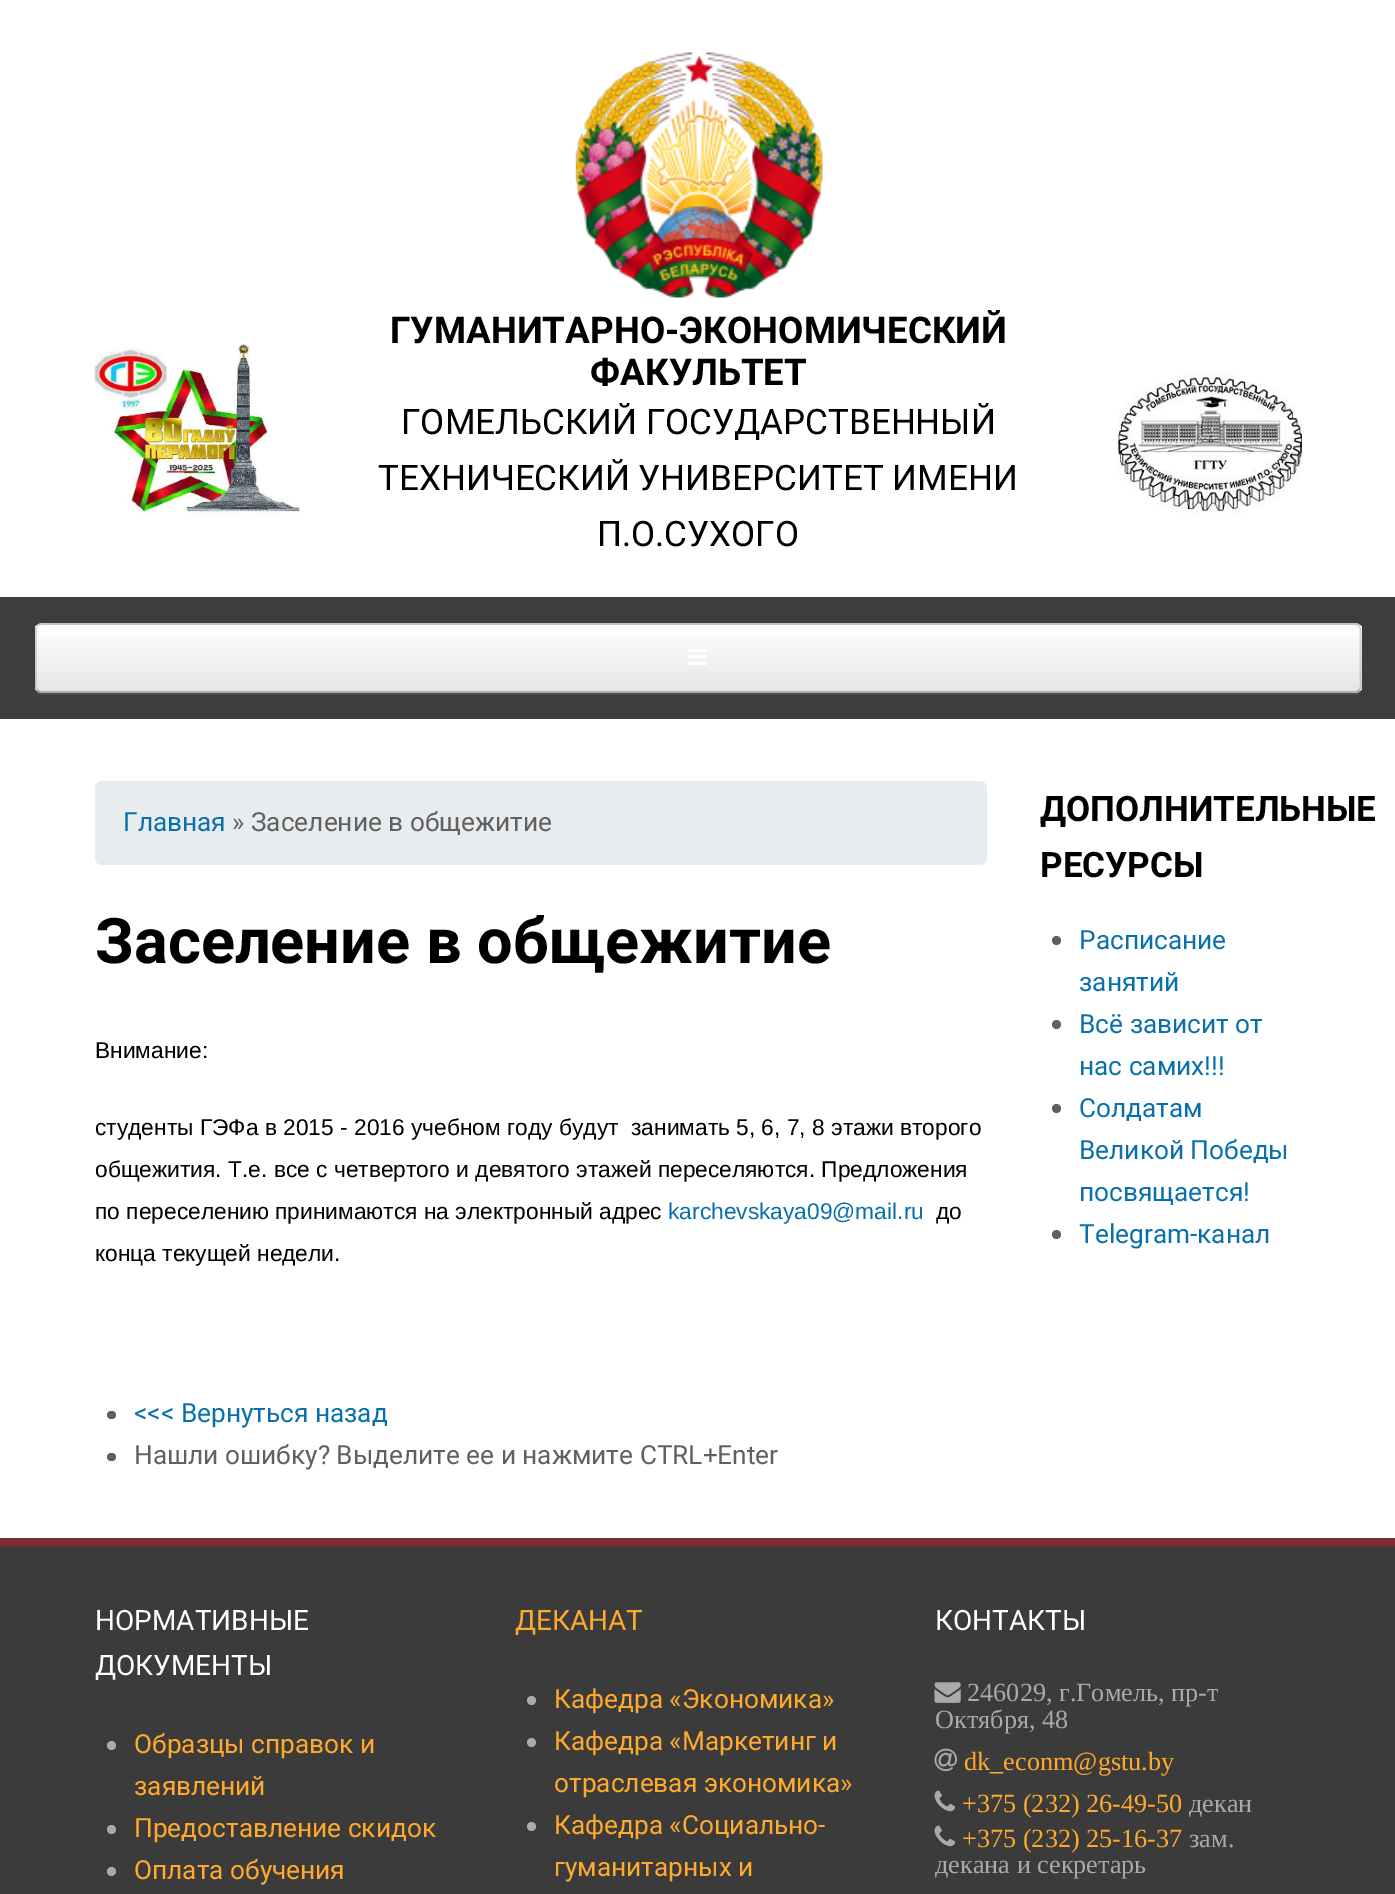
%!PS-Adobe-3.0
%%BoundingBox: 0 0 1395 1894
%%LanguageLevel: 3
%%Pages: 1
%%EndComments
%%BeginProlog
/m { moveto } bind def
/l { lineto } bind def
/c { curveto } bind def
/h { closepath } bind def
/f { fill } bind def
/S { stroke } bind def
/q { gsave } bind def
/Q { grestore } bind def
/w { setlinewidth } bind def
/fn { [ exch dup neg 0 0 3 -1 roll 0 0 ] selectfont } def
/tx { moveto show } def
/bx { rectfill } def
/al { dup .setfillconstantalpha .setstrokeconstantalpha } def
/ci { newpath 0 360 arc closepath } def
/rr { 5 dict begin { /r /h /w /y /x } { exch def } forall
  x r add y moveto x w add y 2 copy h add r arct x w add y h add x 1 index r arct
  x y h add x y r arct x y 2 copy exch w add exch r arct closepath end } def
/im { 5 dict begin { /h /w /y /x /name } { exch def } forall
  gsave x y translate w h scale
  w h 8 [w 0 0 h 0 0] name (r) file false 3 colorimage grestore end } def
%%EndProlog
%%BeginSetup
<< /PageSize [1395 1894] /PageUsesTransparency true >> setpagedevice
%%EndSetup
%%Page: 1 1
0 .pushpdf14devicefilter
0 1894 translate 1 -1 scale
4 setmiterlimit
1 setgray
0 0 1395 1894 bx
(image0.raw) 575 52 248 246 im
(image1.raw) 94 342 207 173 im
/Roboto-Bold 36.75 fn
0 setgray
(ГУМАНИТАРНО-ЭКОНОМИЧЕСКИЙ) 390 343 tx
(ФАКУЛЬТЕТ) 590 385 tx
(image2.raw) 1118 374 184 140 im
/Roboto-Regular 35 fn
(ГОМЕЛЬСКИЙ ГОСУДАРСТВЕННЫЙ) 401 434 tx
(ТЕХНИЧЕСКИЙ УНИВЕРСИТЕТ ИМЕНИ) 378 490 tx
(П.О.СУХОГО) 597 546 tx
0.239 setgray
0 597 1395 122 bx
0.298 setgray
35 686 m 35 688 l 35 692 38 695 42 695 c 1355 695 l 1359 695 1362 692 1362 688 c 1362 632 l 1361 629 l 1362 686 l 1362 690 1358 693 1354 693 c 42 693 l 38 693 35 690 35 686 c h f
0.91 setgray
35 623 1327 70 7 rr f
q
35 623 1327 70 7 rr clip newpath
q 35 625 m 1362 625 l 1362 691 l 35 691 l h clip newpath
<< /ShadingType 2 /ColorSpace /DeviceRGB /Coords [698 625 698 691] /Extend [true true] /Function << /FunctionType 2 /Domain [0 1] /C0 [1 1 1] /C1 [0.902 0.902 0.902] /N 1 >> >> shfill Q
Q
0.25 al
0 setgray
1.8 w
1359 690.5 m 1357.5 691.5 1356 692 1354.5 692 c 42 692 l 40.5 692 39 691.5 37.5 690.5 c S
0.15 al
37.5 690.5 m 34.5 687 36 680 36 676.5 c 36 629.5 l 36 626.5 39 624 42 624 c 1354.5 624 l 1357.5 624 1360.5 626.5 1360.5 629.5 c 1360.5 676.5 l 1360.5 680 1362 687 1359 690.5 c S
1 al
(image3.raw) 688 649 19 16 im
0.914 0.925 0.937 setrgbcolor
95 781 892 84 7 rr f
/Roboto-Regular 26.25 fn
0.039 0.439 0.671 setrgbcolor
(Главная) 123 831 tx
0.376 setgray
(» Заселение в общежитие) 232 831 tx
/Roboto-Bold 63 fn
0 setgray
(Заселение в общежитие) 95 963 tx
/LiberationSans-Regular 22.75 fn
(Внимание:) 95 1058 tx
(студенты ГЭФа в 2015 - 2016 учебном году будут  занимать 5, 6, 7, 8 этажи второго) 95 1135 tx
(общежития. Т.е. все с четвертого и девятого этажей переселяются. Предложения) 95 1177 tx
(по переселению принимаются на электронный адрес) 95 1219 tx
0.039 0.439 0.671 setrgbcolor
(karchevskaya09@mail.ru) 668 1219 tx
0 setgray
(до) 936 1219 tx
(конца текущей недели.) 95 1261 tx
0.376 setgray
107 1411 9 8 4 rr f
/Roboto-Regular 26.25 fn
0.039 0.439 0.671 setrgbcolor
(<<< Вернуться назад) 134 1422 tx
0.376 setgray
107 1453 9 8 4 rr f
(Нашли ошибку? Выделите ее и нажмите CTRL+Enter) 134 1464 tx
/Roboto-Bold 35 fn
0 setgray
(ДОПОЛНИТЕЛЬНЫЕ) 1040 821 tx
(РЕСУРСЫ) 1040 877 tx
0.376 setgray
1056.5 940.5 4.5 ci f
/Roboto-Regular 26.25 fn
0.039 0.439 0.671 setrgbcolor
(Расписание) 1079 949 tx
(занятий) 1079 991 tx
0.376 setgray
1056.5 1024.5 4.5 ci f
0.039 0.439 0.671 setrgbcolor
(Всё зависит от) 1079 1033 tx
(нас самих!!!) 1079 1075 tx
0.376 setgray
1056.5 1108.5 4.5 ci f
0.039 0.439 0.671 setrgbcolor
(Солдатам) 1079 1117 tx
(Великой Победы) 1079 1159 tx
(посвящается!) 1079 1201 tx
0.376 setgray
1056.5 1234.5 4.5 ci f
0.039 0.439 0.671 setrgbcolor
(Telegram-канал) 1079 1243 tx
0.231 setgray
0 1547 1395 347 bx
0.475 0.176 0.212 setrgbcolor
0 1538 1395 9 bx
/Roboto-Regular 28 fn
1 setgray
(НОРМАТИВНЫЕ) 95 1630 tx
(ДОКУМЕНТЫ) 95 1675 tx
0.667 setgray
111.5 1745.5 4.5 ci f
/Roboto-Regular 26.25 fn
1 0.667 0.176 setrgbcolor
(Образцы справок и) 134 1753 tx
(заявлений) 134 1795 tx
0.667 setgray
111.5 1829.5 4.5 ci f
1 0.667 0.176 setrgbcolor
(Предоставление скидок) 134 1837 tx
0.667 setgray
111.5 1871.5 4.5 ci f
1 0.667 0.176 setrgbcolor
(Оплата обучения) 134 1879 tx
/Roboto-Regular 28 fn
(ДЕКАНАТ) 515 1630 tx
0.667 setgray
531.5 1700.5 4.5 ci f
/Roboto-Regular 26.25 fn
1 0.667 0.176 setrgbcolor
(Кафедра «Экономика») 554 1708 tx
0.667 setgray
531.5 1742.5 4.5 ci f
1 0.667 0.176 setrgbcolor
(Кафедра «Маркетинг и) 554 1750 tx
(отраслевая экономика») 554 1792 tx
0.667 setgray
531.5 1826.5 4.5 ci f
1 0.667 0.176 setrgbcolor
(Кафедра «Социально-) 554 1834 tx
(гуманитарных и) 554 1876 tx
/Roboto-Regular 28 fn
1 setgray
(КОНТАКТЫ) 935 1630 tx
(image4.raw) 934 1682 27 21 im
/LiberationSerif-Regular 26.25 fn
0.667 setgray
(246029, г.Гомель, пр-т) 967 1701 tx
(Октября, 48) 935 1728 tx
(image5.raw) 934 1748 23 24 im
1 0.667 0.176 setrgbcolor
(dk_econm@gstu.by) 964 1770 tx
(image6.raw) 934 1790 22 22 im
(+375 \(232\) 26-49-50) 962 1812 tx
0.667 setgray
(декан) 1189 1812 tx
(image6.raw) 934 1825 22 22 im
1 0.667 0.176 setrgbcolor
(+375 \(232\) 25-16-37) 962 1847 tx
0.667 setgray
(зам.) 1189 1847 tx
(декана и секретарь) 935 1873 tx
.poppdf14devicefilter showpage
%%EOF
